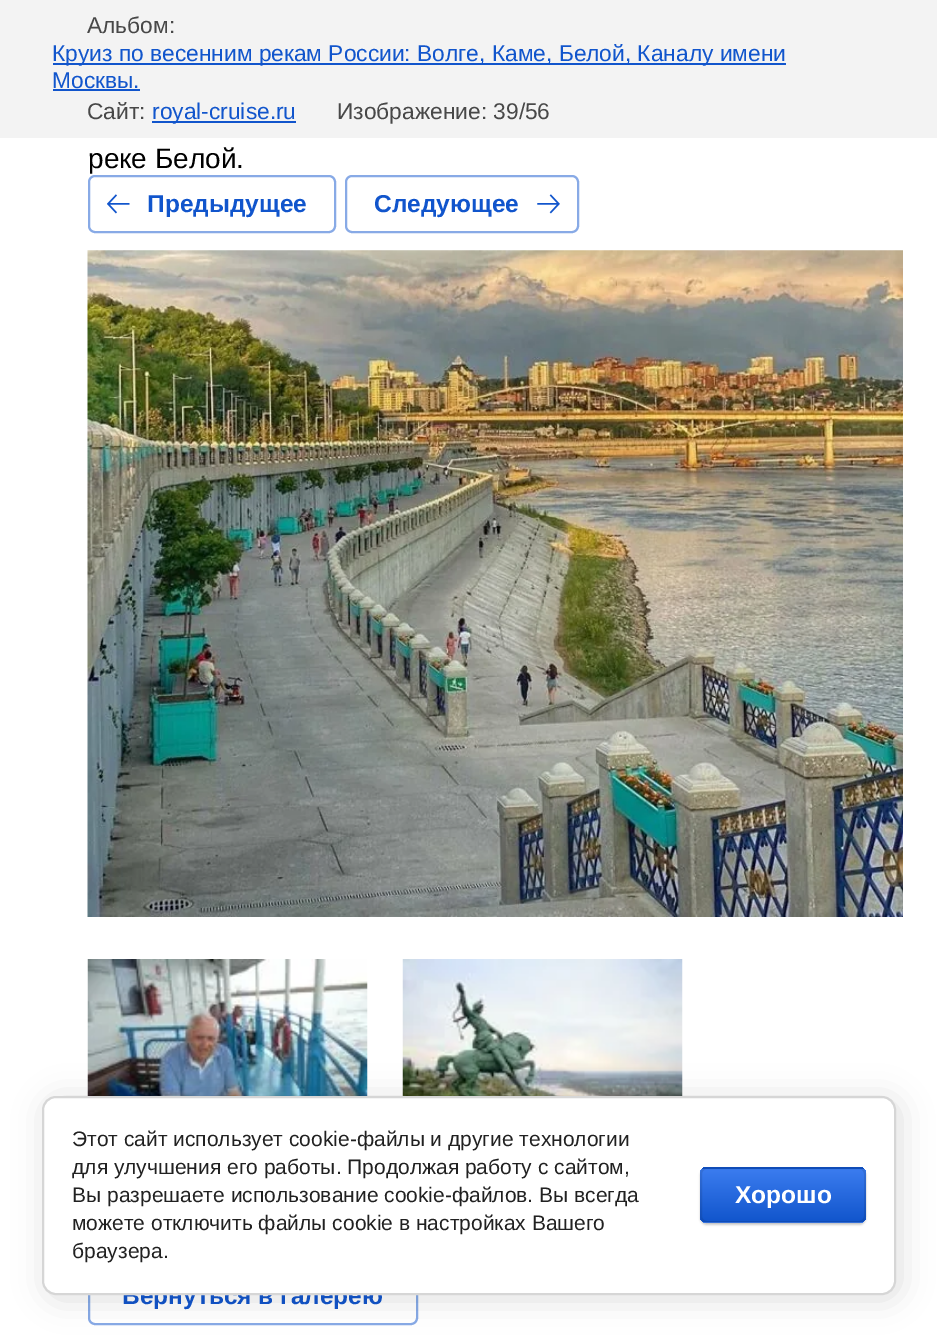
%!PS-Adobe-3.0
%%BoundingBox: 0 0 937 1336
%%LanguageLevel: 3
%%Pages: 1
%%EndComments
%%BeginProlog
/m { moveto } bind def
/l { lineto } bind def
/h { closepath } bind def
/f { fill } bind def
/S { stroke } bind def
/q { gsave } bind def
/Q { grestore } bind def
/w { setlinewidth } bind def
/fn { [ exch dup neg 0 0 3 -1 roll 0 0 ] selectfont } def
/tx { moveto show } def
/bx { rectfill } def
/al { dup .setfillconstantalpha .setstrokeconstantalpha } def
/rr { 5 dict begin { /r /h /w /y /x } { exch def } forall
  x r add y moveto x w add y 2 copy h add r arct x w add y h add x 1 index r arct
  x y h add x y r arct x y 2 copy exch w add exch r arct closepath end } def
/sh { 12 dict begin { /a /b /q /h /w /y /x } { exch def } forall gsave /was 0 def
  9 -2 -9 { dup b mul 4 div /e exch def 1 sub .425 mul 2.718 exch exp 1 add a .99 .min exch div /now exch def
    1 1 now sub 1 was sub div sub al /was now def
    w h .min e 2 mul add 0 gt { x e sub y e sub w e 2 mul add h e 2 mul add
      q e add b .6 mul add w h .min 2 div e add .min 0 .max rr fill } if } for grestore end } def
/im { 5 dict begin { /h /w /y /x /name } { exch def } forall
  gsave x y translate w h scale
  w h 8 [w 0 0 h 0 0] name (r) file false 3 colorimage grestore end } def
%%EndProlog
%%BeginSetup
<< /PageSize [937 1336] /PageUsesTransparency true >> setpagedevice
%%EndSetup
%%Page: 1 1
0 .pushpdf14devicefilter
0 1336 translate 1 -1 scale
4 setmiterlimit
1 setgray
0 0 937 1336 bx
0.953 setgray
0 0 937 138 bx
/LiberationSans-Regular 22.75 fn
0.282 setgray
(Альбом:) 87 33 tx
0.067 0.333 0.8 setrgbcolor
53 63 733 2 bx
(Круиз по весенним рекам России: Волге, Каме, Белой, Каналу имени) 52 61 tx
(Москвы.) 52 88 tx
53 89 87 2 bx
0.282 setgray
(Сайт:) 87 119 tx
0.067 0.333 0.8 setrgbcolor
152 121 144 2 bx
(royal-cruise.ru) 152 119 tx
0.282 setgray
(Изображение: 39/56) 337 119 tx
/LiberationSans-Regular 28 fn
0 setgray
(реке Белой.) 88 168 tx
0.533 0.667 0.902 setrgbcolor
2 w
89 176 246 56 6 rr S
(image0.raw) 107 194 23 20 im
/LiberationSans-Bold 24.5 fn
0.067 0.333 0.8 setrgbcolor
(Предыдущее) 147 212 tx
0.533 0.667 0.902 setrgbcolor
346 176 232 56 6 rr S
0.067 0.333 0.8 setrgbcolor
(Следующее) 374 212 tx
(image1.raw) 537 194 23 20 im
(image2.raw) 87 250 816 667 im
(image3.raw) 87 959 281 137 im
(image4.raw) 402 959 281 137 im
0.533 0.667 0.902 setrgbcolor
89 1268 328 56 6 rr S
0.067 0.333 0.8 setrgbcolor
(Вернуться в галерею) 122 1304 tx
0 setgray
46 1099 854 200 14 16 0.14 sh
1 setgray
43 1097 852 197 13 rr q f Q
0.839 setgray
S
/LiberationSans-Regular 21 fn
0.129 setgray
(Этот сайт использует cookie-файлы и другие технологии) 72 1146 tx
(для улучшения его работы. Продолжая работу с сайтом,) 72 1174 tx
(Вы разрешаете использование cookie-файлов. Вы всегда) 72 1202 tx
(можете отключить файлы cookie в настройках Вашего) 72 1230 tx
(браузера.) 72 1258 tx
0 setgray
700 1169 166 56 7 1 0.2 sh
q
700 1167 166 56 7 rr clip newpath
q 700 1167 m 866 1167 l 866 1169 l 700 1169 l h clip newpath
<< /ShadingType 2 /ColorSpace /DeviceRGB /Coords [783 1117 783 1169] /Extend [true true] /Function << /FunctionType 2 /Domain [0 1] /C0 [0.231 0.486 0.937] /C1 [0.067 0.333 0.8] /N 1 >> >> shfill Q
q 700 1169 m 866 1169 l 866 1222 l 700 1222 l h clip newpath
<< /ShadingType 2 /ColorSpace /DeviceRGB /Coords [783 1169 783 1222] /Extend [true true] /Function << /FunctionType 2 /Domain [0 1] /C0 [0.231 0.486 0.937] /C1 [0.067 0.333 0.8] /N 1 >> >> shfill Q
q 700 1222 m 866 1222 l 866 1223 l 700 1223 l h clip newpath
<< /ShadingType 2 /ColorSpace /DeviceRGB /Coords [783 1222 783 1274] /Extend [true true] /Function << /FunctionType 2 /Domain [0 1] /C0 [0.231 0.486 0.937] /C1 [0.067 0.333 0.8] /N 1 >> >> shfill Q
Q
0.1 al
701 1168 164 54 6 rr S
/LiberationSans-Bold 24.5 fn
1 al
1 setgray
(Хорошо) 735 1203 tx
.poppdf14devicefilter showpage
%%EOF
